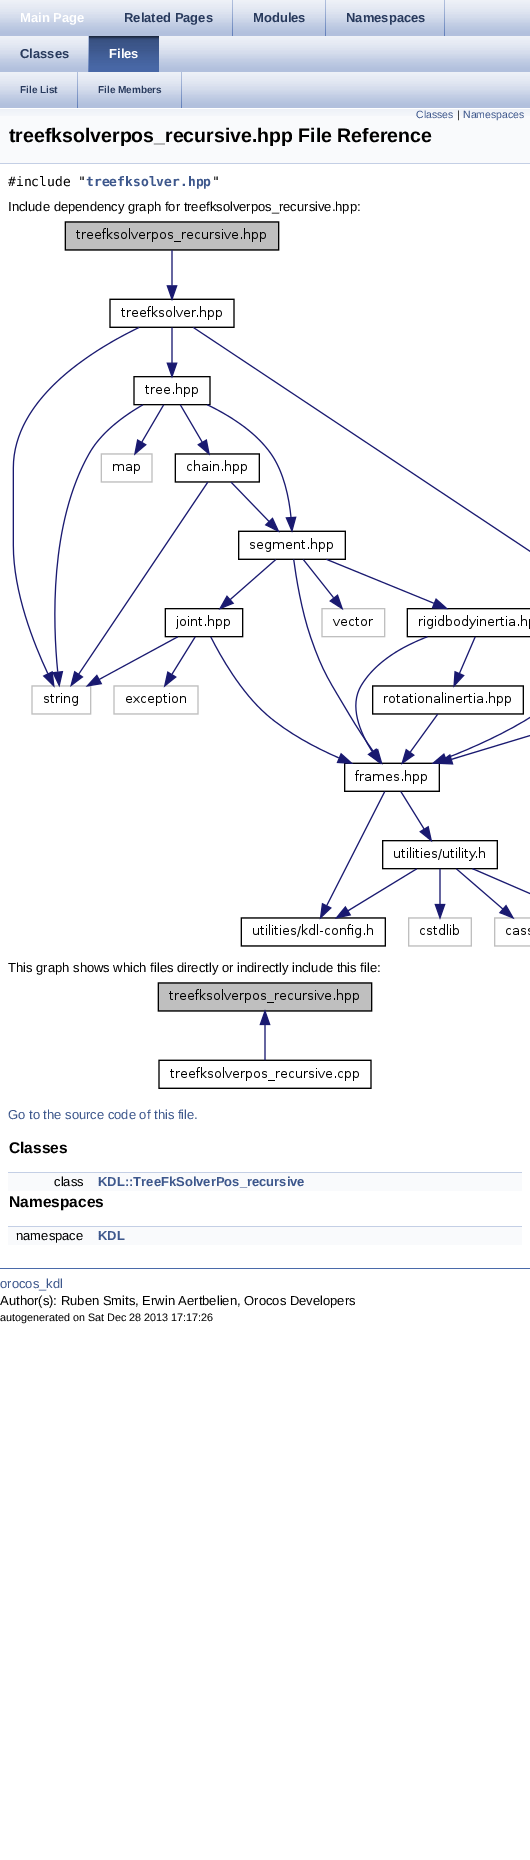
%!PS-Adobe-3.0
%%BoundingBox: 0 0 530 1860
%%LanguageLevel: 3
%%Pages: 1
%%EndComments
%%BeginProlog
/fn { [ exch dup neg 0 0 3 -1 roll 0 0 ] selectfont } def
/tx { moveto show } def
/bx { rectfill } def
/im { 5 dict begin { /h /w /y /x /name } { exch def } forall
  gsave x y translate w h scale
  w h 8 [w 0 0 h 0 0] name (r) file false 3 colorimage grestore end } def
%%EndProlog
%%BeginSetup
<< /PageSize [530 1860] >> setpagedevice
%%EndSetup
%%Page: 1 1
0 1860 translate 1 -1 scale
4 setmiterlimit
1 setgray
0 0 530 1860 bx
(image0.raw) 0 0 530 72 im
/LiberationSans-Bold 13 fn
(Main Page) 20 22 tx
(image1.raw) 232 0 1 36 im
0.157 0.227 0.365 setrgbcolor
(Related Pages) 124 22 tx
(image1.raw) 325 0 1 36 im
(Modules) 253 22 tx
(image1.raw) 444 0 1 36 im
(Namespaces) 346 22 tx
(image1.raw) 88 36 1 36 im
(Classes) 20 58 tx
(image2.raw) 89 36 70 36 im
1 setgray
(Files) 109 58 tx
(image3.raw) 0 72 530 36 im
(image1.raw) 77 72 1 36 im
/LiberationSans-Bold 10 fn
0.157 0.227 0.365 setrgbcolor
(File List) 20 93 tx
(image1.raw) 181 72 1 36 im
(File Members) 98 93 tx
0.976 0.98 0.988 setrgbcolor
0 116 530 47 bx
(image4.raw) 0 108 530 8 im
0.769 0.812 0.898 setrgbcolor
0 163 530 1 bx
/LiberationSans-Regular 10.5 fn
0.239 0.341 0.549 setrgbcolor
(Classes) 416 118 tx
0 setgray
(|) 457 118 tx
0.239 0.341 0.549 setrgbcolor
(Namespaces) 463 118 tx
/LiberationSans-Bold 19.5 fn
0 setgray
(treefksolverpos_recursive.hpp File Reference) 9 142 tx
/DejaVuSansMono-Regular 13 fn
(#include ") 8 186 tx
/DejaVuSansMono-Bold 13 fn
0.239 0.341 0.549 setrgbcolor
(treefksolver.hpp) 86 186 tx
/DejaVuSansMono-Regular 13 fn
0 setgray
(") 212 186 tx
/LiberationSans-Regular 13 fn
(Include dependency graph for treefksolverpos_recursive.hpp:) 8 211 tx
(image5.raw) 12 221 518 726 im
(This graph shows which files directly or indirectly include this file:) 8 972 tx
(image6.raw) 157 982 216 107 im
0.239 0.341 0.549 setrgbcolor
(Go to the source code of this file.) 8 1119 tx
/LiberationSans-Bold 15.5 fn
0 setgray
(Classes) 9 1153 tx
0.976 0.98 0.988 setrgbcolor
8 1173 514 18 bx
0.769 0.812 0.898 setrgbcolor
8 1172 514 1 bx
/LiberationSans-Regular 13 fn
0 setgray
(class) 54 1186 tx
/LiberationSans-Bold 13 fn
0.239 0.341 0.549 setrgbcolor
(KDL::TreeFkSolverPos_recursive) 98 1186 tx
/LiberationSans-Bold 15.5 fn
0 setgray
(Namespaces) 9 1207 tx
0.976 0.98 0.988 setrgbcolor
8 1227 514 18 bx
0.769 0.812 0.898 setrgbcolor
8 1226 514 1 bx
/LiberationSans-Regular 13 fn
0 setgray
(namespace) 16 1240 tx
/LiberationSans-Bold 13 fn
0.239 0.341 0.549 setrgbcolor
(KDL) 98 1240 tx
0.29 0.416 0.667 setrgbcolor
0 1268 530 1 bx
/LiberationSans-Regular 13 fn
0.239 0.341 0.549 setrgbcolor
(orocos_kdl) 0 1288 tx
0 setgray
(Author\(s\): Ruben Smits, Erwin Aertbelien, Orocos Developers) 0 1305 tx
/LiberationSans-Regular 10.8 fn
(autogenerated on Sat Dec 28 2013 17:17:26) 0 1321 tx
showpage
%%EOF
